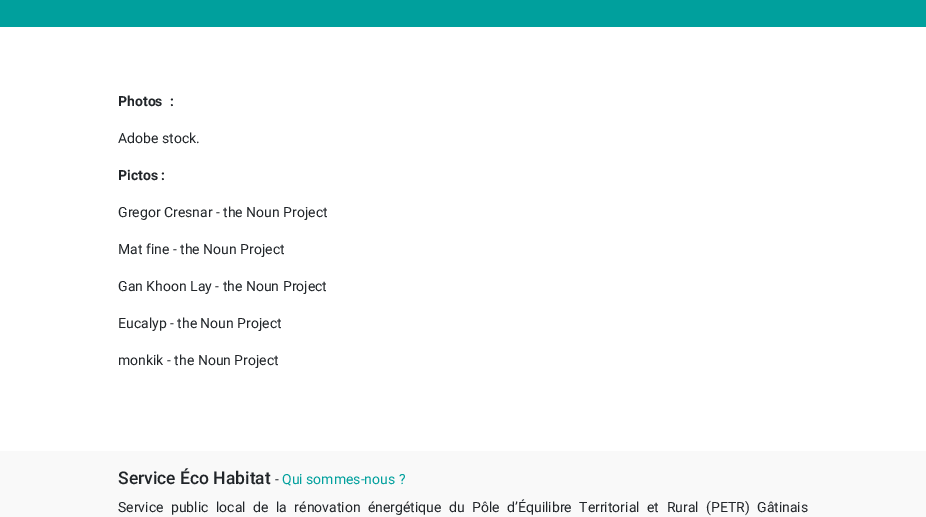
%!PS-Adobe-3.0
%%BoundingBox: 0 0 926 517
%%LanguageLevel: 3
%%Pages: 1
%%EndComments
%%BeginProlog
/m { moveto } bind def
/fn { [ exch dup neg 0 0 3 -1 roll 0 0 ] selectfont } def
/tx { moveto show } def
/bx { rectfill } def
%%EndProlog
%%BeginSetup
<< /PageSize [926 517] >> setpagedevice
%%EndSetup
%%Page: 1 1
0 517 translate 1 -1 scale
4 setmiterlimit
1 setgray
0 0 926 517 bx
0 0.627 0.616 setrgbcolor
0 0 926 27 bx
/Roboto-Bold 14 fn
0.129 0.145 0.161 setrgbcolor
(Photos  :) 118 106 tx
/Roboto-Regular 14 fn
(Adobe stock.) 118 143 tx
/Roboto-Bold 14 fn
(Pictos :) 118 180 tx
/Roboto-Regular 14 fn
(Gregor Cresnar - the Noun Project) 118 217 tx
(Mat fine - the Noun Project) 118 254 tx
(Gan Khoon Lay - the Noun Project) 118 291 tx
(Eucalyp - the Noun Project) 118 328 tx
(monkik - the Noun Project) 118 365 tx
0.976 setgray
0 451 926 66 bx
/Roboto-Medium 17.5 fn
0.129 0.145 0.161 setrgbcolor
(Service Éco Habitat) 118 484 tx
/Roboto-Regular 14 fn
(-) 275 484 tx
0 0.627 0.616 setrgbcolor
(Qui sommes-nous ?) 282 484 tx
0.129 0.145 0.161 setrgbcolor
118 512 m 4 0 32 (Service public local de la rénovation énergétique du Pôle d’Équilibre Territorial et Rural \(PETR\) Gâtinais) widthshow
showpage
%%EOF
